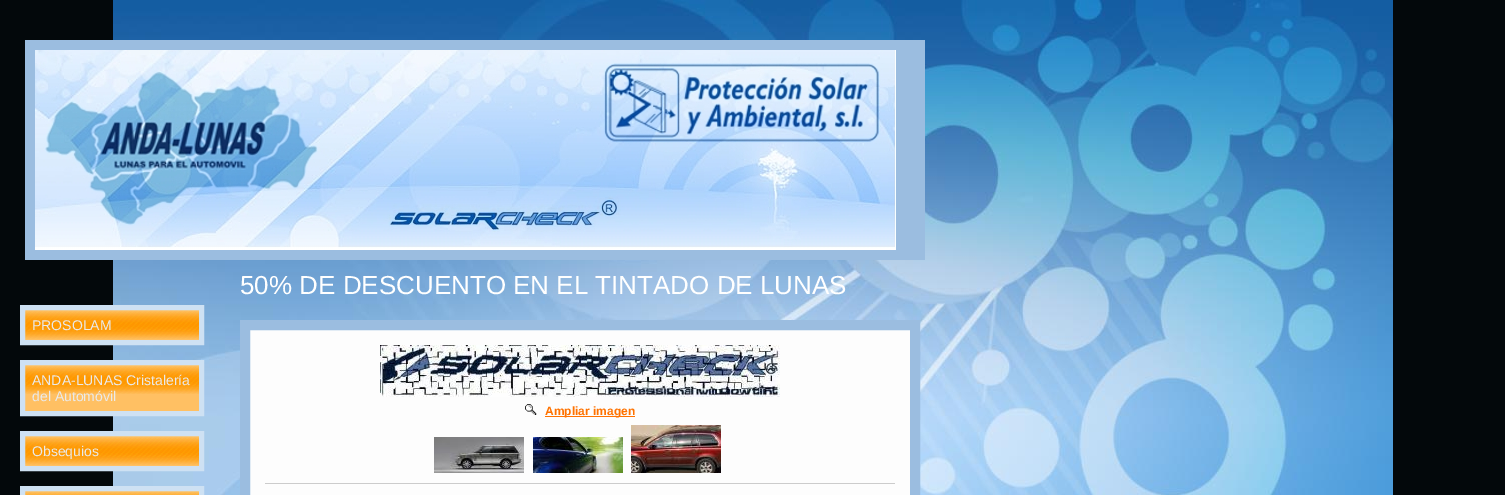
%!PS-Adobe-3.0
%%BoundingBox: 0 0 1505 495
%%LanguageLevel: 3
%%Pages: 1
%%EndComments
%%BeginProlog
/m { moveto } bind def
/l { lineto } bind def
/h { closepath } bind def
/f { fill } bind def
/S { stroke } bind def
/q { gsave } bind def
/Q { grestore } bind def
/w { setlinewidth } bind def
/fn { [ exch dup neg 0 0 3 -1 roll 0 0 ] selectfont } def
/tx { moveto show } def
/bx { rectfill } def
/im { 5 dict begin { /h /w /y /x /name } { exch def } forall
  gsave x y translate w h scale
  w h 8 [w 0 0 h 0 0] name (r) file false 3 colorimage grestore end } def
%%EndProlog
%%BeginSetup
<< /PageSize [1505 495] >> setpagedevice
%%EndSetup
%%Page: 1 1
0 495 translate 1 -1 scale
4 setmiterlimit
0.012 0.031 0.043 setrgbcolor
0 0 1505 495 bx
(image0.raw) 113 0 1280 495 im
0.608 0.741 0.878 setrgbcolor
25 40 900 220 bx
(image1.raw) 35 50 861 200 im
1 0.753 0.388 setrgbcolor
25 339 174 1 bx
(image2.raw) 25 310 174 29 im
0.808 0.882 0.953 setrgbcolor
5 w
22.5 307.5 179 35 rectstroke
/LiberationSans-Regular 14 fn
0.918 setgray
(PROSOLAM) 32 330 tx
1 0.753 0.388 setrgbcolor
25 394 174 17 bx
(image2.raw) 25 365 174 29 im
0.808 0.882 0.953 setrgbcolor
22.5 362.5 179 51 rectstroke
0.918 setgray
(ANDA-LUNAS Cristalería) 32 385 tx
(del Automóvil) 32 401 tx
1 0.753 0.388 setrgbcolor
25 465 174 1 bx
(image2.raw) 25 436 174 29 im
0.808 0.882 0.953 setrgbcolor
22.5 433.5 179 35 rectstroke
0.918 setgray
(Obsequios) 32 456 tx
(image3.raw) 25 491 174 4 im
0.808 0.882 0.953 setrgbcolor
22.5 488.5 179 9 rectstroke
/LiberationSans-Regular 26 fn
1 setgray
(50% DE DESCUENTO EN EL TINTADO DE LUNAS) 240 294 tx
0.992 setgray
245 325 m 915 325 l 915 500 l 245 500 l h q f Q
0.608 0.741 0.878 setrgbcolor
10 w
S
(image4.raw) 380 345 400 52 im
(image5.raw) 525 404 12 11 im
1 0.447 0 setrgbcolor
545 416 90 1 bx
/LiberationSans-Bold 12 fn
(Ampliar imagen) 545 415 tx
0.8 setgray
265 483 630 1 bx
(image6.raw) 434 437 90 36 im
(image7.raw) 533 437 90 36 im
(image8.raw) 631 425 90 48 im
showpage
%%EOF
